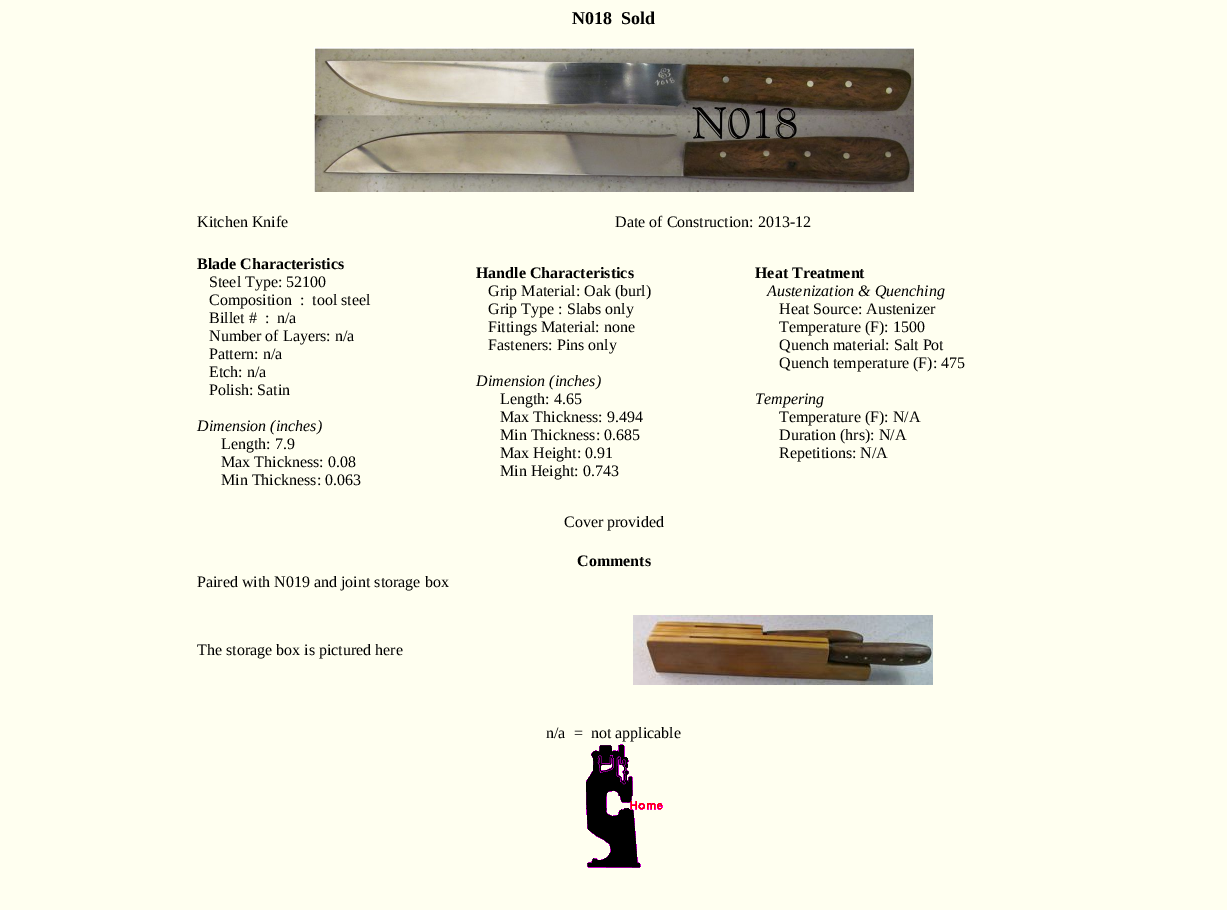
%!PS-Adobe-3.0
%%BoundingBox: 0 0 1227 910
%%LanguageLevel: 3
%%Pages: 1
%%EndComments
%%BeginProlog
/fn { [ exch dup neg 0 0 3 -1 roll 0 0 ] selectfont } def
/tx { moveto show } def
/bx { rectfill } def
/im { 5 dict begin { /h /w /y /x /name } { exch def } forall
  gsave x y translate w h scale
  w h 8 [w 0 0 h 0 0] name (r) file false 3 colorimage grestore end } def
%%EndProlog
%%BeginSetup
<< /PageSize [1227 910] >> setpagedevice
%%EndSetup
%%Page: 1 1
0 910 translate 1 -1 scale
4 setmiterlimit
1 1 0.941 setrgbcolor
0 0 1227 910 bx
/LiberationSerif-Bold 18 fn
0 setgray
(N018  Sold) 572 24 tx
(image0.raw) 314 47 600 145 im
/LiberationSerif-Regular 16 fn
(Kitchen Knife) 197 227 tx
(Date of Construction: 2013-12) 615 227 tx
/LiberationSerif-Bold 16 fn
(Blade Characteristics) 197 269 tx
/LiberationSerif-Regular 16 fn
(Steel Type: 52100) 209 287 tx
(Composition  :  tool steel) 209 305 tx
(Billet #  :  n/a) 209 323 tx
(Number of Layers: n/a) 209 341 tx
(Pattern: n/a) 209 359 tx
(Etch: n/a) 209 377 tx
(Polish: Satin) 209 395 tx
/LiberationSerif-Italic 16 fn
(Dimension \(inches\)) 197 431 tx
/LiberationSerif-Regular 16 fn
(Length: 7.9) 221 449 tx
(Max Thickness: 0.08) 221 467 tx
(Min Thickness: 0.063) 221 485 tx
/LiberationSerif-Bold 16 fn
(Handle Characteristics) 476 278 tx
/LiberationSerif-Regular 16 fn
(Grip Material: Oak \(burl\)) 488 296 tx
(Grip Type : Slabs only) 488 314 tx
(Fittings Material: none) 488 332 tx
(Fasteners: Pins only) 488 350 tx
/LiberationSerif-Italic 16 fn
(Dimension \(inches\)) 476 386 tx
/LiberationSerif-Regular 16 fn
(Length: 4.65) 500 404 tx
(Max Thickness: 9.494) 500 422 tx
(Min Thickness: 0.685) 500 440 tx
(Max Height: 0.91) 500 458 tx
(Min Height: 0.743) 500 476 tx
/LiberationSerif-Bold 16 fn
(Heat Treatment) 755 278 tx
/LiberationSerif-Italic 16 fn
(Austenization & Quenching) 767 296 tx
/LiberationSerif-Regular 16 fn
(Heat Source: Austenizer) 779 314 tx
(Temperature \(F\): 1500) 779 332 tx
(Quench material: Salt Pot) 779 350 tx
(Quench temperature \(F\): 475) 779 368 tx
/LiberationSerif-Italic 16 fn
(Tempering) 755 404 tx
/LiberationSerif-Regular 16 fn
(Temperature \(F\): N/A) 779 422 tx
(Duration \(hrs\): N/A) 779 440 tx
(Repetitions: N/A) 779 458 tx
(Cover provided) 564 527 tx
/LiberationSerif-Bold 16 fn
(Comments) 577 566 tx
/LiberationSerif-Regular 16 fn
(Paired with N019 and joint storage box) 197 587 tx
(The storage box is pictured here) 197 655 tx
(image1.raw) 633 615 300 70 im
(n/a  =  not applicable) 546 738 tx
(image2.raw) 586 744 77 124 im
showpage
%%EOF
